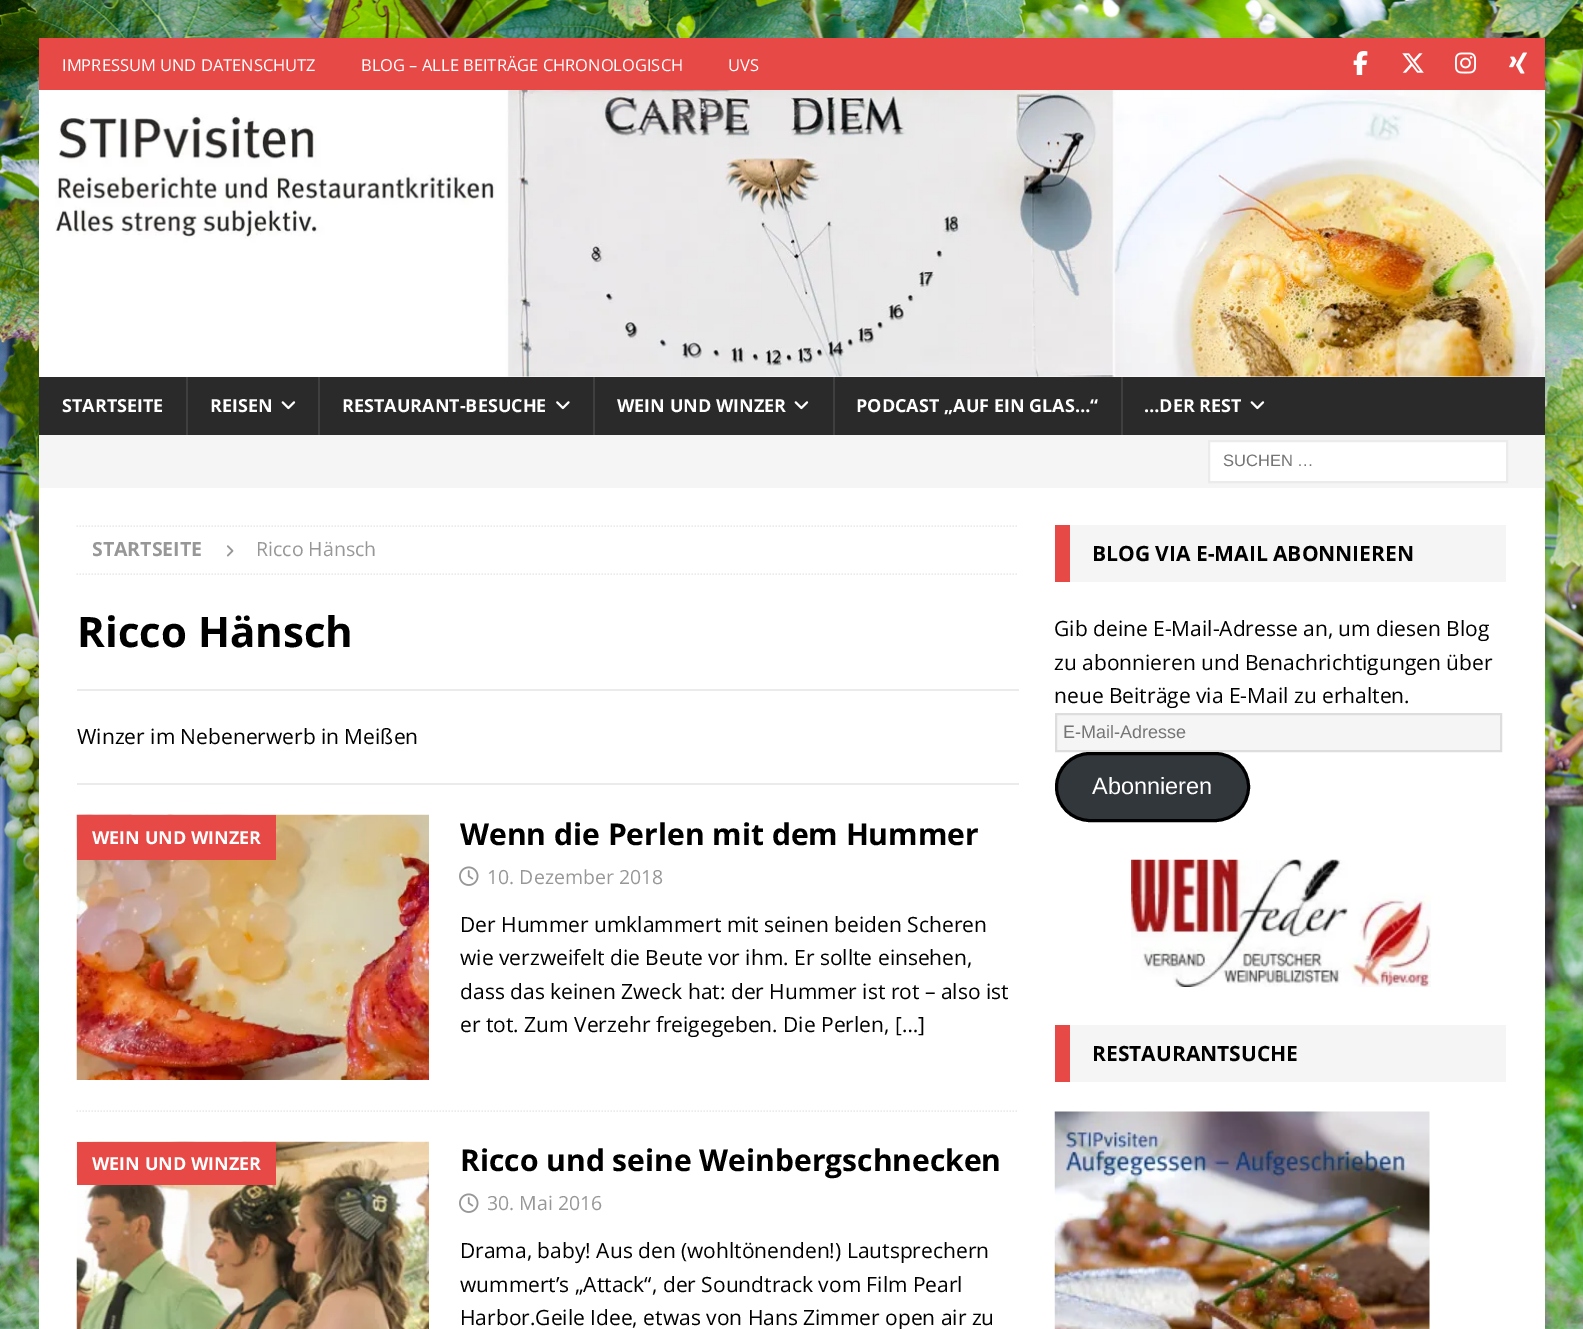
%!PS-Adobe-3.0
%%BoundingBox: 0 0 1583 1329
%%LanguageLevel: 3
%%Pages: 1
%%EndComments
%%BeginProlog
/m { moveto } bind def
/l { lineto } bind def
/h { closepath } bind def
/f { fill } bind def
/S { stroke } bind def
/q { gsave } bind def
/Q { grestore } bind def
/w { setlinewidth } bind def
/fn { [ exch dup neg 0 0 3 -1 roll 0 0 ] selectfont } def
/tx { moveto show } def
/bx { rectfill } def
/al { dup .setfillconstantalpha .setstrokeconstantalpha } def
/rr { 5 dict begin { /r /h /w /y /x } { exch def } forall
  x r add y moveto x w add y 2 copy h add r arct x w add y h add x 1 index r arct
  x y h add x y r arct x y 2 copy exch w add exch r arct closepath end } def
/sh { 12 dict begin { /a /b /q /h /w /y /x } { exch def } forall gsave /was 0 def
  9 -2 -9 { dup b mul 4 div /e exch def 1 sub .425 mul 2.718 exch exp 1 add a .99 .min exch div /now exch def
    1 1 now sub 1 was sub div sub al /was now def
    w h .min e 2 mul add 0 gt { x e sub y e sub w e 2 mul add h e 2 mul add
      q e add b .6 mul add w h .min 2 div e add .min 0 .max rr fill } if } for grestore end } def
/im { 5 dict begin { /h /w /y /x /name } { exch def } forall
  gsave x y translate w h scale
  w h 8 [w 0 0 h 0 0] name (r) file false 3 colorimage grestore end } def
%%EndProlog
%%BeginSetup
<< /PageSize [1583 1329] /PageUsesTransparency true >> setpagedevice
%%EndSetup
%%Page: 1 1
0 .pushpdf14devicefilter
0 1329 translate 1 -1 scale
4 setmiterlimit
1 setgray
0 0 1583 1329 bx
(image0.raw) 0 0 1583 1329 im
0.196 setgray
39 38 1506 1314 0 7.5 0.17 sh
0.902 0.286 0.275 setrgbcolor
39 38 1506 52 bx
/OpenSans-Regular 16.5 fn
1 setgray
(IMPRESSUM UND DATENSCHUTZ) 62 71 tx
(BLOG – ALLE BEITRÄGE CHRONOLOGISCH) 361 71 tx
(UVS) 728 71 tx
(image1.raw) 1353 51 15 24 im
(image2.raw) 1402 53 22 20 im
(image3.raw) 1455 52 21 22 im
(image4.raw) 1509 52 18 22 im
39 90 1506 287 bx
(image5.raw) 55 90 1490 287 im
0.165 setgray
39 377 1506 58 bx
/OpenSans-Bold 18 fn
1 setgray
(STARTSEITE) 62 412 tx
0.247 setgray
186 377 2 58 bx
1 setgray
(REISEN) 210 412 tx
(image6.raw) 281 401 15 9 im
0.247 setgray
318 377 2 58 bx
1 setgray
(RESTAURANT-BESUCHE) 342 412 tx
(image7.raw) 556 401 14 9 im
0.247 setgray
593 377 2 58 bx
1 setgray
(WEIN UND WINZER) 617 412 tx
(image6.raw) 794 401 15 9 im
0.247 setgray
833 377 2 58 bx
1 setgray
(PODCAST „AUF EIN GLAS…“) 856 412 tx
0.247 setgray
1121 377 2 58 bx
1 setgray
(…DER REST) 1144 412 tx
(image6.raw) 1250 401 15 9 im
0.961 setgray
39 435 1506 53 bx
1 setgray
1209 441 m 1507 441 l 1507 482 l 1209 482 l h q f Q
0.922 setgray
2 w
S
/LiberationSans-Regular 16.5 fn
0.459 setgray
(SUCHEN …) 1223 466 tx
1 setgray
39 488 1506 841 bx
0.922 setgray
1.5 w
[1.5 1.5] 0 setdash
76.5 526 m 1018.5 526 l S
76.5 574 m 1018.5 574 l S
/OpenSans-Bold 19.5 fn
0.592 setgray
(STARTSEITE) 92 556 tx
(image8.raw) 226 545 8 12 im
/OpenSans-Regular 19.5 fn
(Ricco Hänsch) 256 556 tx
/OpenSans-Bold 42 fn
0 setgray
(Ricco Hänsch) 77 647 tx
0.922 setgray
77 689 942 2 bx
77 783 942 2 bx
/OpenSans-Regular 21 fn
0 setgray
(Winzer im Nebenerwerb in Meißen) 77 744 tx
0.922 setgray
76.5 1111 m 1018.5 1111 l S
(image9.raw) 76 814 353 266 im
0.902 0.286 0.275 setrgbcolor
77 815 199 45 bx
/OpenSans-Bold 18 fn
1 setgray
(WEIN UND WINZER) 92 844 tx
/OpenSans-Bold 30 fn
0 setgray
(Wenn die Perlen mit dem Hummer) 460 845 tx
(image10.raw) 459 866 20 20 im
/OpenSans-Regular 19.5 fn
0.592 setgray
(10. Dezember 2018) 487 884 tx
/OpenSans-Regular 21 fn
0 setgray
(Der Hummer umklammert mit seinen beiden Scheren) 460 932 tx
(wie verzweifelt die Beute vor ihm. Er sollte einsehen,) 460 965 tx
(dass das keinen Zweck hat: der Hummer ist rot – also ist) 460 999 tx
(er tot. Zum Verzehr freigegeben. Die Perlen, […]) 460 1032 tx
(image11.raw) 76 1141 353 188 im
0.902 0.286 0.275 setrgbcolor
77 1142 199 43 bx
/OpenSans-Bold 18 fn
1 setgray
(WEIN UND WINZER) 92 1170 tx
/OpenSans-Bold 30 fn
0 setgray
(Ricco und seine Weinbergschnecken) 460 1171 tx
(image10.raw) 459 1193 20 20 im
/OpenSans-Regular 19.5 fn
0.592 setgray
(30. Mai 2016) 487 1210 tx
/OpenSans-Regular 21 fn
0 setgray
(Drama, baby! Aus den \(wohltönenden!\) Lautsprechern) 460 1258 tx
(wummert’s „Attack“, der Soundtrack vom Film Pearl) 460 1292 tx
(Harbor.Geile Idee, etwas von Hans Zimmer open air zu) 460 1325 tx
0.961 setgray
1070 525 436 57 bx
0.902 0.286 0.275 setrgbcolor
1055 525 15 57 bx
/OpenSans-Bold 21 fn
0 setgray
(BLOG VIA E-MAIL ABONNIEREN) 1092 561 tx
/OpenSans-Regular 21 fn
(Gib deine E-Mail-Adresse an, um diesen Blog) 1054 636 tx
(zu abonnieren und Benachrichtigungen über) 1054 670 tx
(neue Beiträge via E-Mail zu erhalten.) 1054 703 tx
0.961 setgray
1056 714 m 1501 714 l 1501 751 l 1056 751 l h q f Q
0.867 setgray
2 w
[] 0 setdash
S
/LiberationSans-Regular 18 fn
0.459 setgray
(E-Mail-Adresse) 1063 738 tx
0.196 0.216 0.235 setrgbcolor
1056.5 753.5 192 67 33.5 rr q f Q
0 setgray
3 w
S
/LiberationSans-Regular 23.5 fn
1 setgray
(Abonnieren) 1092 794 tx
(image12.raw) 1131 859 300 128 im
0.961 setgray
1070 1025 436 57 bx
0.902 0.286 0.275 setrgbcolor
1055 1025 15 57 bx
/OpenSans-Bold 21 fn
0 setgray
(RESTAURANTSUCHE) 1092 1061 tx
(image13.raw) 1054 1111 376 218 im
.poppdf14devicefilter showpage
%%EOF
